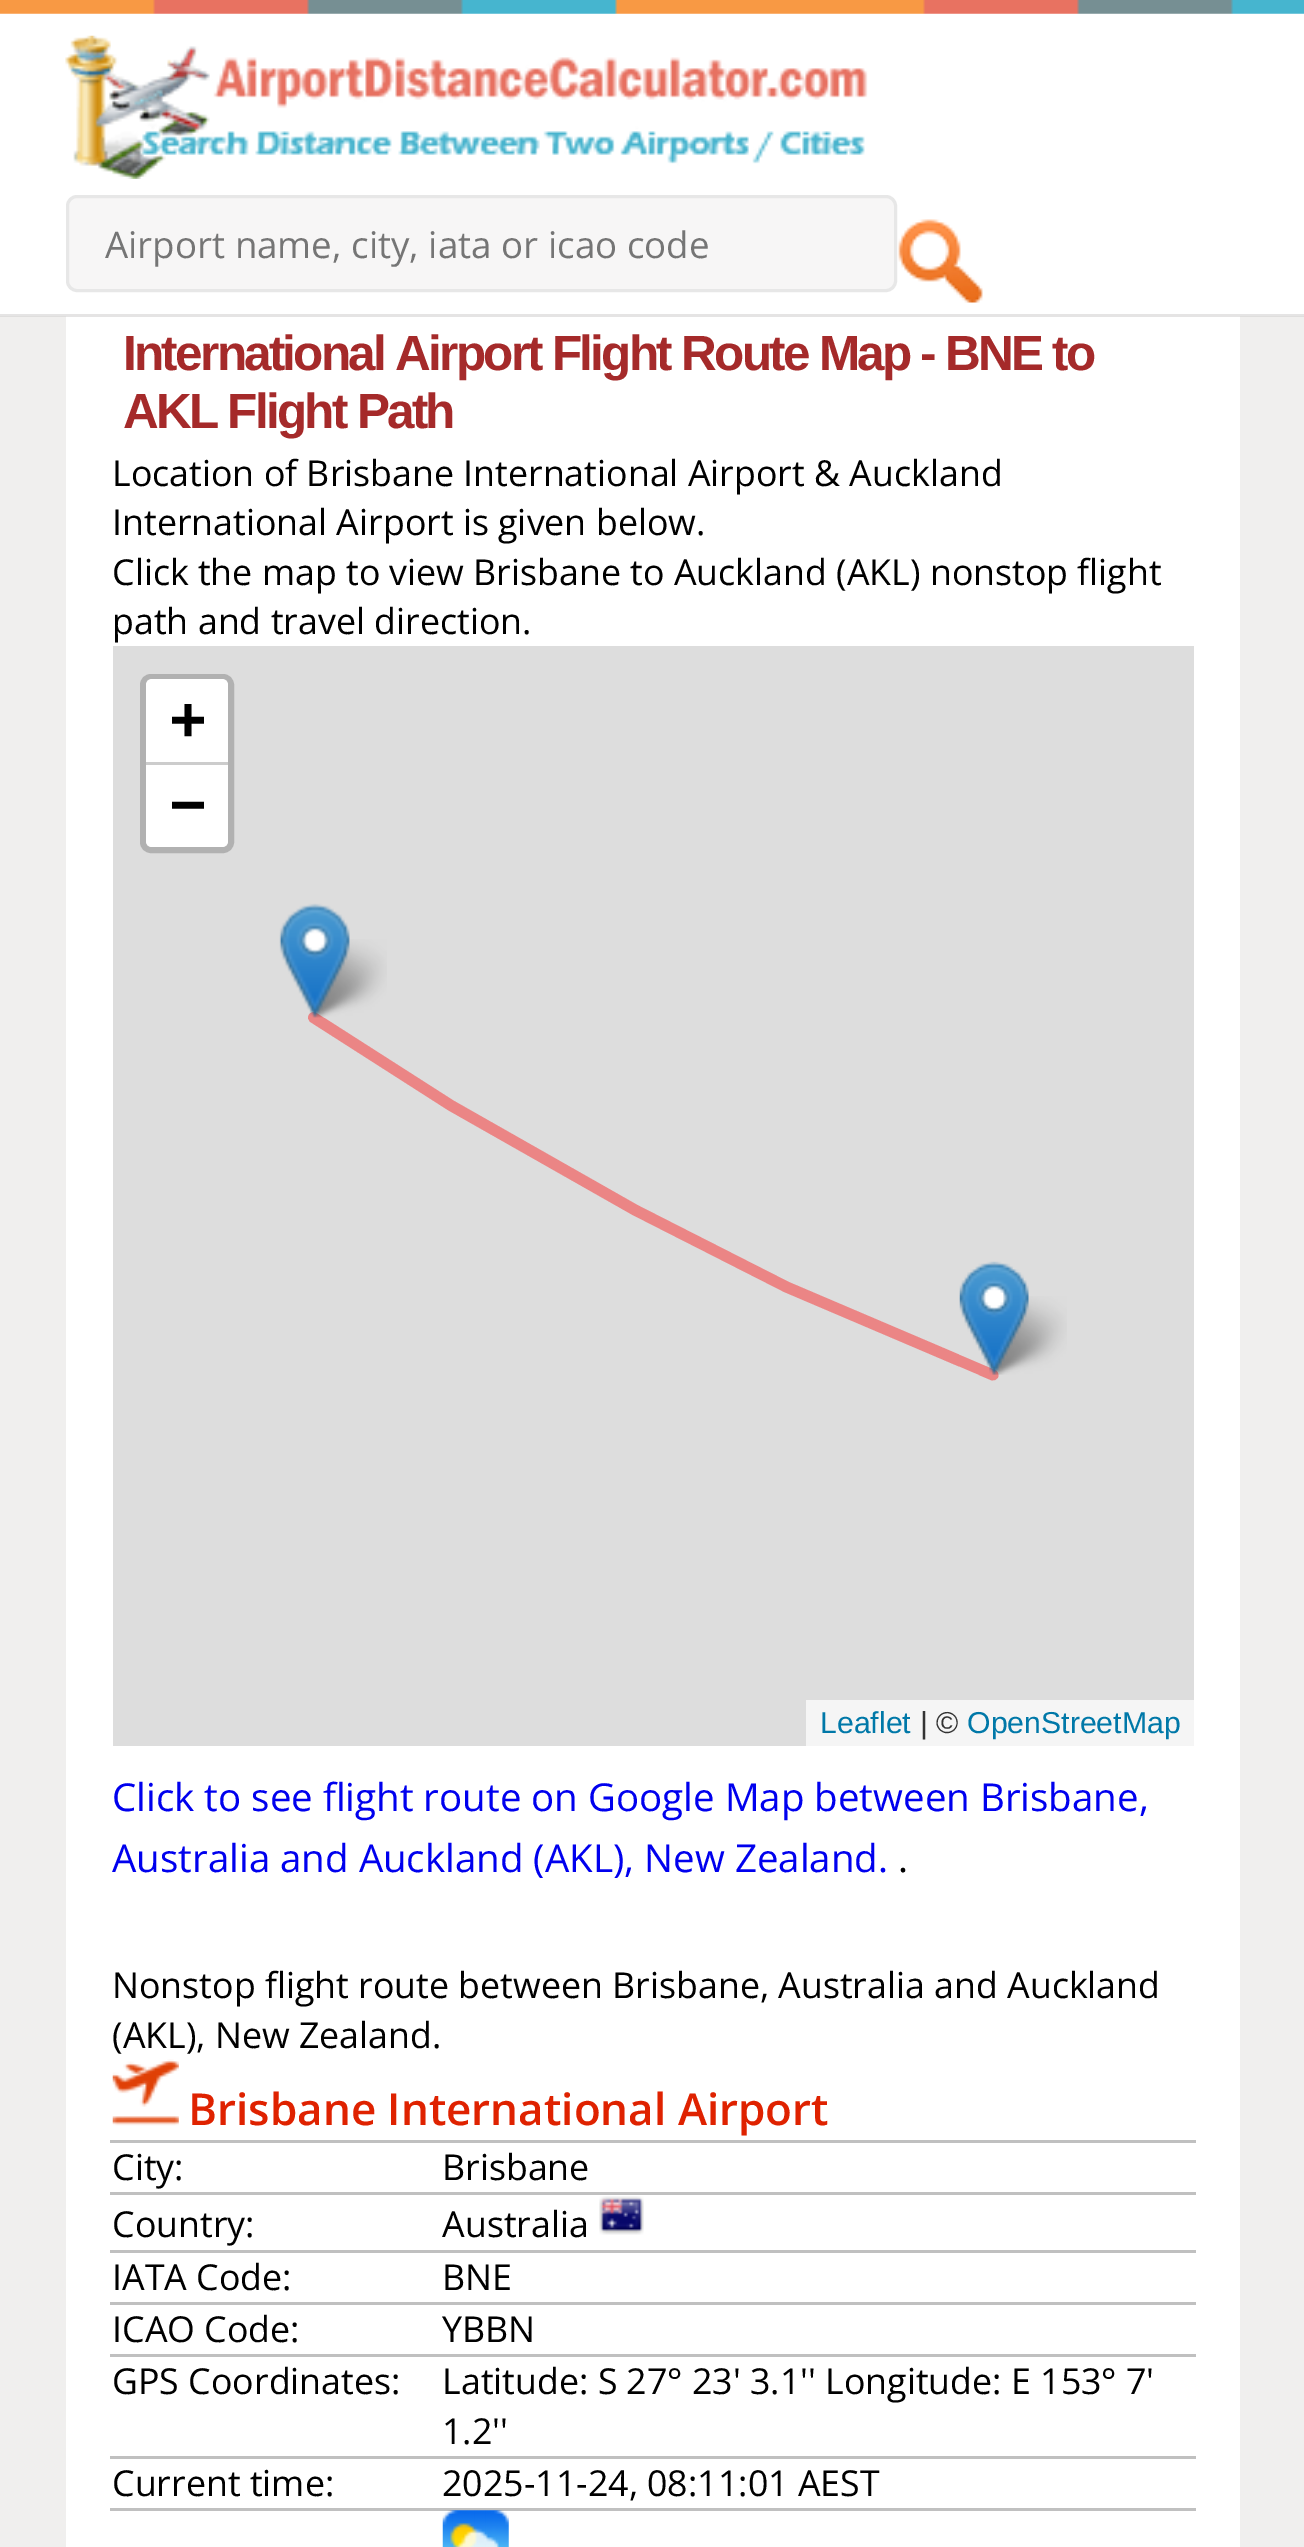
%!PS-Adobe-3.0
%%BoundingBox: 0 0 1304 2547
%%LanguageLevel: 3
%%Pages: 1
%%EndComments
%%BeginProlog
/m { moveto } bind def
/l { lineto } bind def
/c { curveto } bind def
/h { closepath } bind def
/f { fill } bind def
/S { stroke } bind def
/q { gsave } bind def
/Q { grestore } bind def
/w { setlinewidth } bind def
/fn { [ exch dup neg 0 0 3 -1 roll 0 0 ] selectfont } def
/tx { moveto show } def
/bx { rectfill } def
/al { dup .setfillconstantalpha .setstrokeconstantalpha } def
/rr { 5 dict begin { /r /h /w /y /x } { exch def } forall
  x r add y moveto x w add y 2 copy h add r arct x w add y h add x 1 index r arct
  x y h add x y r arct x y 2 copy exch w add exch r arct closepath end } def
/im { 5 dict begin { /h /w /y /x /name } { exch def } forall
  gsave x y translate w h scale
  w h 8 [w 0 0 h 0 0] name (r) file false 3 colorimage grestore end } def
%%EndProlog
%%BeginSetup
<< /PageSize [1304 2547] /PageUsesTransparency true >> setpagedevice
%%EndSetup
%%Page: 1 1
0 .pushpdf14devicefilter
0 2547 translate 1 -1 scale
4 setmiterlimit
0.941 0.937 0.933 setrgbcolor
0 0 1304 2547 bx
1 setgray
0 13 1304 303 bx
(image0.raw) 0 0 1304 14 im
66 316 1174 2231 bx
0.64 al
0.839 0.835 0.831 setrgbcolor
0 314 1304 3 bx
1 al
(image1.raw) 65 35 803 144 im
0.969 0.965 0.965 setrgbcolor
67.5 196.5 828 94 9.5 rr q f Q
0.906 setgray
3 w
S
/OpenSans-Regular 36.7 fn
0.459 setgray
(Airport name, city, iata or icao code) 105 258 tx
(image2.raw) 898 219 85 84 im
/LiberationSans-Bold 49.5 fn
0.647 0.165 0.165 setrgbcolor
123 370 m -2.75 0 (International Airport Flight Route Map - BNE to) ashow
123 428 m -2.75 0 (AKL Flight Path) ashow
/OpenSans-Regular 35.75 fn
0 setgray
(Location of Brisbane International Airport & Auckland) 112 486 tx
(International Airport is given below.) 112 535 tx
(Click the map to view Brisbane to Auckland \(AKL\) nonstop flight) 112 585 tx
(path and travel direction.) 112 634 tx
0.867 setgray
113 646 1081 1100 bx
0.694 setgray
6 w
143 677 88 173 8 rr S
1 setgray
152 679 m 222 679 l 225.5 679 228 681.5 228 685 c 228 765 l 146 765 l 146 685 l 146 681.5 148.5 679 152 679 c h f
0.8 setgray
146 762 82 3 bx
/DejaVuSansMono-Bold 60 fn
0 setgray
(+) 170 739 tx
1 setgray
146 765 m 228 765 l 228 841 l 228 844.5 225.5 847 222 847 c 152 847 l 148.5 847 146 844.5 146 841 c h f
0 setgray
(−) 170 824 tx
0.961 setgray
806 1700 388 46 bx
/LiberationSans-Regular 30.25 fn
0 0.471 0.659 setrgbcolor
(Leaflet) 820 1733 tx
0.2 setgray
(| ©) 920 1733 tx
0 0.471 0.659 setrgbcolor
(OpenStreetMap) 967 1733 tx
0.922 0.522 0.522 setrgbcolor
11 w
1 setlinecap
1 setlinejoin
313.5 1017.5 m 451 1105.5 l 635 1210 l 786.5 1287 l 993 1375 l S
(image5.raw) 305 939 82 79 im
(image3.raw) 279 903 71 115 im
(image6.raw) 984 1296 83 79 im
(image4.raw) 959 1261 70 114 im
/OpenSans-Regular 38.5 fn
0 0 0.933 setrgbcolor
(Click to see flight route on Google Map between Brisbane,) 112 1811 tx
(Australia and Auckland \(AKL\), New Zealand.) 112 1872 tx
0 setgray
(.) 898 1872 tx
/OpenSans-Regular 35.75 fn
(Nonstop flight route between Brisbane, Australia and Auckland) 112 1998 tx
(\(AKL\), New Zealand.) 112 2048 tx
0.753 setgray
110 2140 1086 3 bx
(image7.raw) 112 2059 67 67 im
/OpenSans-SemiBold 44 fn
0.875 0.133 0 setrgbcolor
(Brisbane International Airport) 188 2125 tx
0.753 setgray
110 2192 1086 3 bx
/OpenSans-Regular 35.75 fn
0 setgray
(City:) 112 2180 tx
(Brisbane) 442 2180 tx
0.753 setgray
110 2250 1086 3 bx
0 setgray
(Country:) 112 2237 tx
(Australia) 442 2237 tx
(image8.raw) 599 2196 45 39 im
0.753 setgray
110 2302 1086 3 bx
0 setgray
(IATA Code:) 112 2290 tx
(BNE) 442 2290 tx
0.753 setgray
110 2354 1086 3 bx
0 setgray
(ICAO Code:) 112 2342 tx
(YBBN) 442 2342 tx
0.753 setgray
110 2456 1086 3 bx
0 setgray
(GPS Coordinates:) 112 2394 tx
(Latitude: S 27° 23' 3.1'' Longitude: E 153° 7') 442 2394 tx
(1.2'') 442 2444 tx
0.753 setgray
110 2508 1086 3 bx
0 setgray
(Current time:) 112 2496 tx
(2025-11-24, 08:11:01 AEST) 442 2496 tx
(image9.raw) 442 2510 67 37 im
.poppdf14devicefilter showpage
%%EOF
